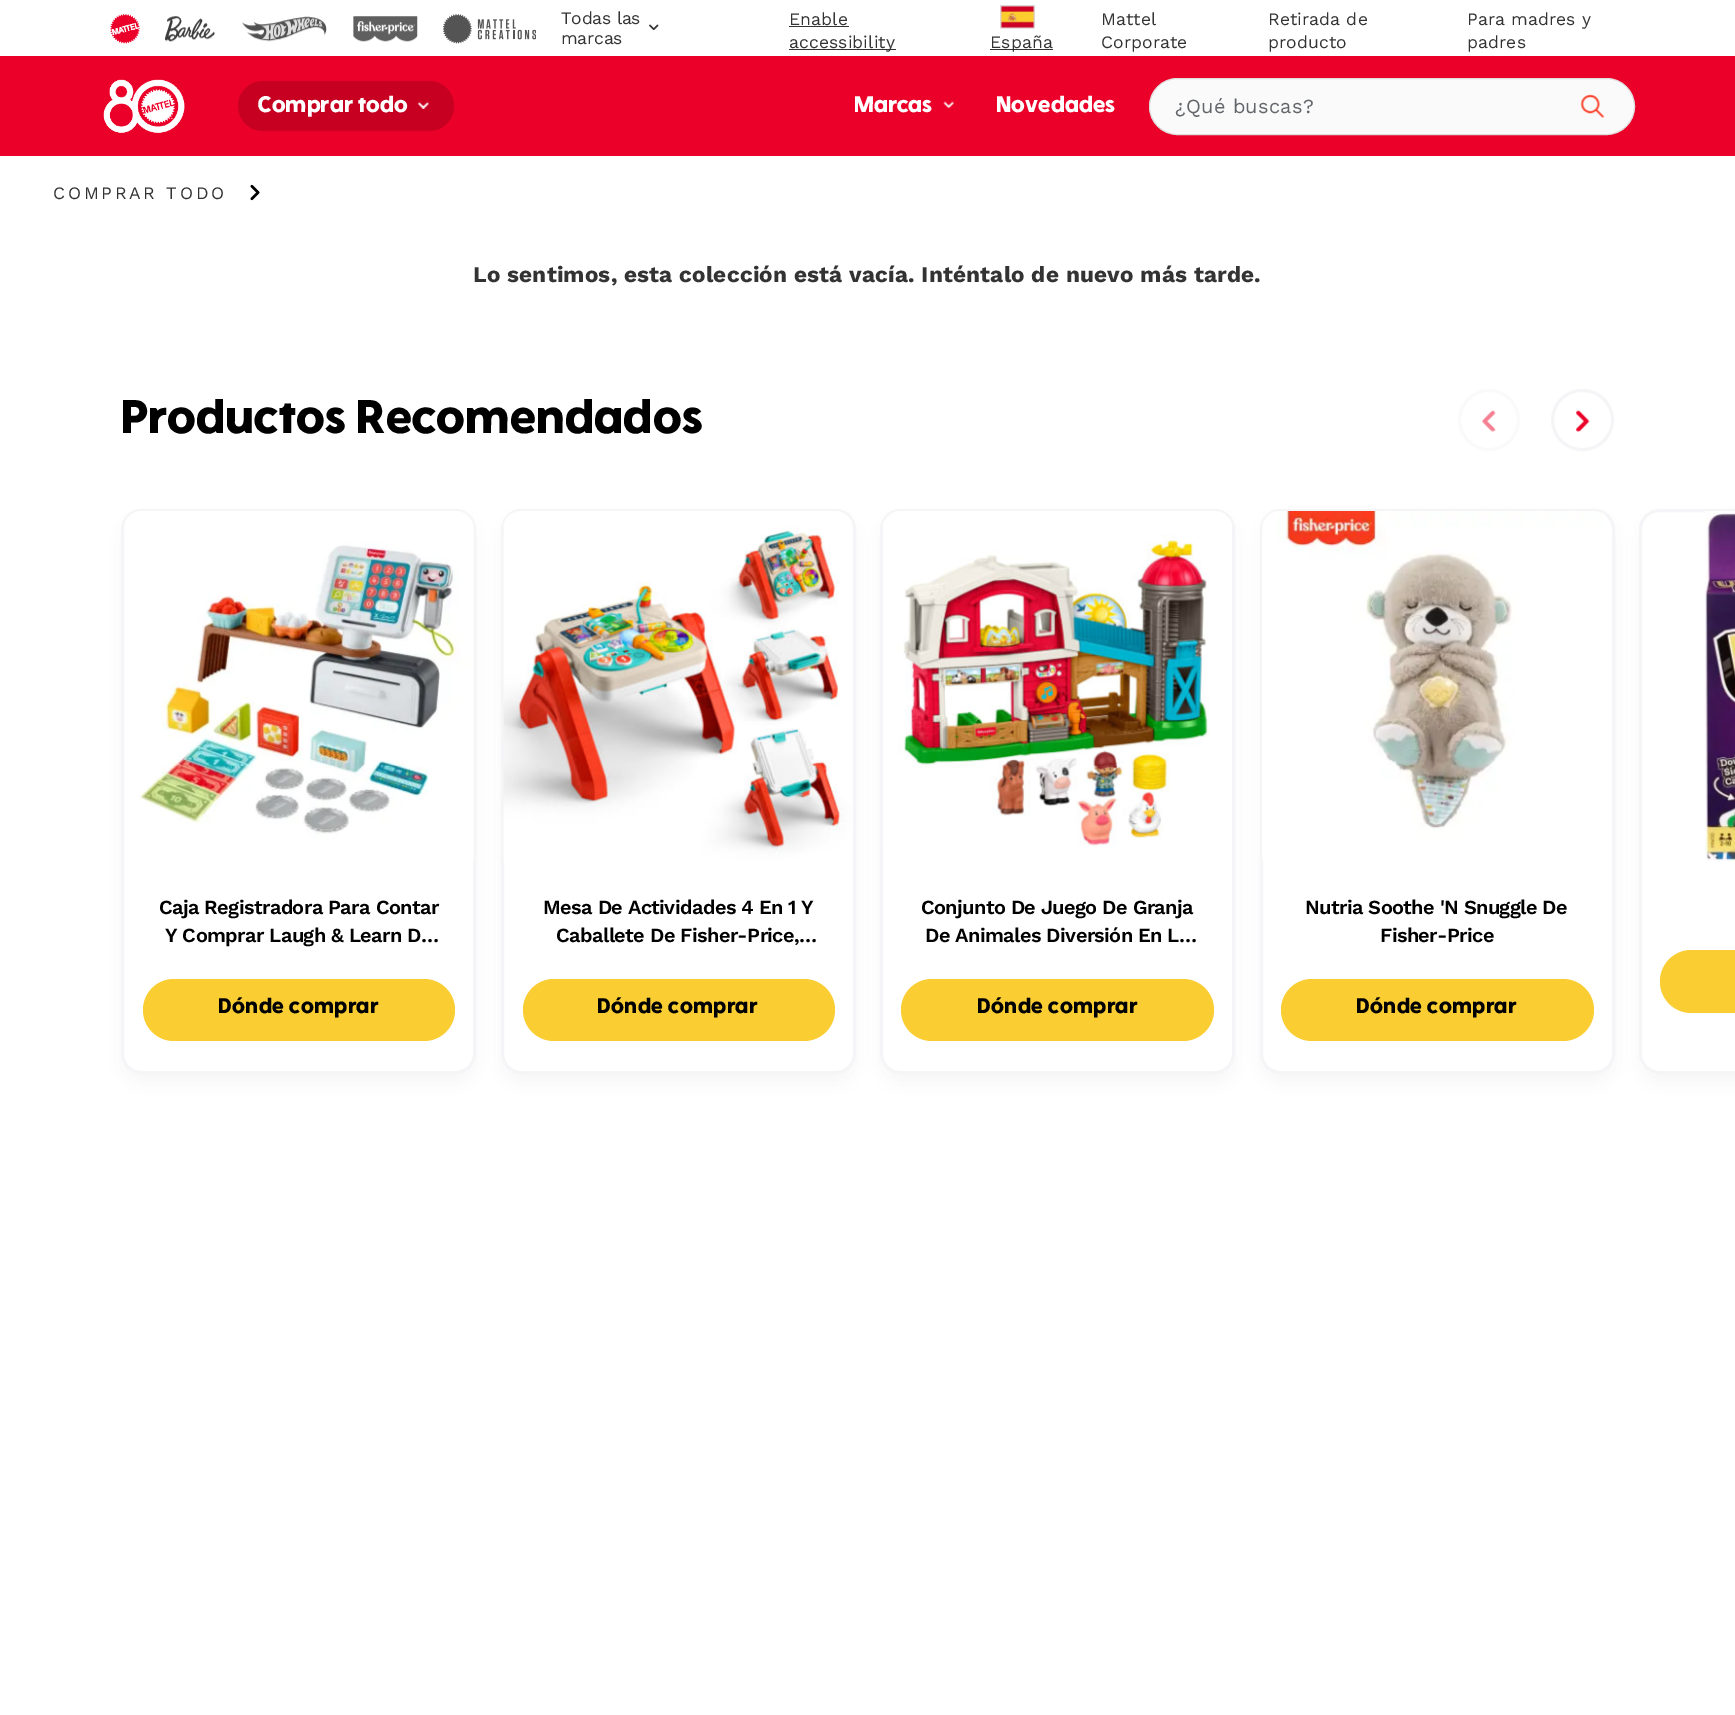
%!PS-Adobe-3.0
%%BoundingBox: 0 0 1735 1715
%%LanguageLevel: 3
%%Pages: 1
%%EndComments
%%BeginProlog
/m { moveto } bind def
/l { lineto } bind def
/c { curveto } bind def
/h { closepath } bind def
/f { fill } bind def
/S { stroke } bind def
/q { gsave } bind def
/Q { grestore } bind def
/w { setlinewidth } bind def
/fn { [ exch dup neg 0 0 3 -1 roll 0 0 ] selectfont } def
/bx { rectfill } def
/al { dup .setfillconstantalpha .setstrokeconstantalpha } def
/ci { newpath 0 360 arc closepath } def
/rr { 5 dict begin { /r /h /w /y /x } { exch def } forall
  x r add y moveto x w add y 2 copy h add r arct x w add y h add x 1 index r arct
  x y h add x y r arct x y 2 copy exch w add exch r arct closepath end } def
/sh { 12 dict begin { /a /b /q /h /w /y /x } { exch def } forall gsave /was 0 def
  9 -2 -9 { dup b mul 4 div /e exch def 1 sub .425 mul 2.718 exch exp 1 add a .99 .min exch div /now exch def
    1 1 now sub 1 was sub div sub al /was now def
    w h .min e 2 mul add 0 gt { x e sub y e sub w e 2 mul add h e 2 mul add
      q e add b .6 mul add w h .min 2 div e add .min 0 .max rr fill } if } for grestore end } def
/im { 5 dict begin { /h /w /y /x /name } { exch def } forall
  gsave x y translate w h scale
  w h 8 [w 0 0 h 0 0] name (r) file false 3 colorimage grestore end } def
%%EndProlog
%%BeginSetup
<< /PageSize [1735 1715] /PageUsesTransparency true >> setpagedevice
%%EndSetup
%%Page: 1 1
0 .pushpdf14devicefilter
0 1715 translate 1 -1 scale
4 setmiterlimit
1 setgray
0 0 1735 1715 bx
(image0.raw) 110 14 30 30 im
(image1.raw) 165 16 50 26 im
(image2.raw) 242 16 85 26 im
(image3.raw) 353 16 65 26 im
(image4.raw) 443 14 93 30 im
/WorkSans-Regular 17.5 fn
0.2 setgray
561 24 m -0.25 0 (Todas las) ashow
561 44 m -0.25 0 (marcas) ashow
(image5.raw) 649 24 10 7 im
789 25 m 0.1 0 (Enable) ashow
789 26 60 1 bx
789 49 107 1 bx
789 48 m 0.1 0 (accessibility) ashow
(image6.raw) 1000 5 35 24 im
990 49 63 1 bx
990 48 m 0.25 0 (España) ashow
1101 25 m 0.1 0 (Mattel) ashow
1101 48 m 0.1 0 (Corporate) ashow
1268 25 m 0.1 0 (Retirada de) ashow
1268 48 m 0.1 0 (producto) ashow
1467 25 m 0.1 0 (Para madres y) ashow
1467 48 m 0.1 0 (padres) ashow
0.918 0 0.157 setrgbcolor
0 56 1735 100 bx
(image7.raw) 103 79 82 54 im
0.78 0 0.133 setrgbcolor
238 81 216 50 25 rr f
/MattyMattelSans-Bold 23.75 fn
1 setgray
258 112 m 0.2 0 (Comprar todo) ashow
(image8.raw) 417 102 12 7 im
q
855 93 111 27 rectclip
854 112 m 0.2 0 (Marcas) ashow
Q
(image9.raw) 943 101 11 7 im
996 112 m 0.2 0 (Novedades) ashow
0.98 setgray
1149.5 78.5 485 56 28 rr q f Q
0.863 setgray
S
/WorkSans-Regular 20 fn
0.384 0.396 0.416 setrgbcolor
1175 113 m 0.25 0 (¿Qué buscas?) ashow
(image10.raw) 1580 94 25 25 im
/WorkSans-Regular 17.5 fn
0.2 setgray
53 199 m 2.75 0 (COMPRAR TODO) ashow
(image11.raw) 250 184 10 17 im
/WorkSans-Bold 22.5 fn
473 282 m 0.2 0 (Lo sentimos, esta colección está vacía. Inténtalo de nuevo más tarde.) ashow
/MattyMattelSans-Bold 50 fn
0 setgray
121 433 m 0.25 0 (Productos Recomendados) ashow
0.98 0.98 0.984 setrgbcolor
3 w
1489 420 29.5 ci S
(image12.raw) 1482 410 14 22 im
0.961 0.961 0.969 setrgbcolor
1552.5 390.5 60 59 29.5 rr S
(image13.raw) 1576 410 14 22 im
0 setgray
121 519 355 565 20 10 0.04 sh
1 setgray
122.5 510.5 352 562 18.5 rr q f Q
0.961 0.961 0.969 setrgbcolor
S
(image14.raw) 125 511 349 350 im
/WorkSans-SemiBold 20 fn
0 setgray
159 914 m -0.6 0 (Caja Registradora Para Contar) ashow
165 942 m -0.6 0 (Y Comprar Laugh & Learn D…) ashow
0.98 0.804 0.196 setrgbcolor
143 979 312 62 31 rr f
/MattyMattelSans-Bold 22.5 fn
0 setgray
218 1013 m 0.4 0 (Dónde comprar) ashow
501 519 355 565 20 10 0.04 sh
1 setgray
502.5 510.5 352 562 18.5 rr q f Q
0.961 0.961 0.969 setrgbcolor
S
(image15.raw) 503 511 349 350 im
/WorkSans-SemiBold 20 fn
0 setgray
543 914 m -0.6 0 (Mesa De Actividades 4 En 1 Y) ashow
556 942 m -0.6 0 (Caballete De Fisher-Price,…) ashow
0.98 0.804 0.196 setrgbcolor
523 979 312 62 31 rr f
/MattyMattelSans-Bold 22.5 fn
0 setgray
597 1013 m 0.4 0 (Dónde comprar) ashow
880 519 355 565 20 10 0.04 sh
1 setgray
881.5 510.5 352 562 18.5 rr q f Q
0.961 0.961 0.969 setrgbcolor
S
(image16.raw) 883 511 349 335 im
/WorkSans-SemiBold 20 fn
0 setgray
921 914 m -0.6 0 (Conjunto De Juego De Granja) ashow
925 942 m -0.6 0 (De Animales Diversión En L…) ashow
0.98 0.804 0.196 setrgbcolor
901 979 313 62 31 rr f
/MattyMattelSans-Bold 22.5 fn
0 setgray
977 1013 m 0.4 0 (Dónde comprar) ashow
1260 519 355 565 20 10 0.04 sh
1 setgray
1261.5 510.5 352 562 18.5 rr q f Q
0.961 0.961 0.969 setrgbcolor
S
(image17.raw) 1262 511 344 350 im
/WorkSans-SemiBold 20 fn
0 setgray
1305 914 m -0.6 0 (Nutria Soothe 'N Snuggle De) ashow
1380 942 m -0.6 0 (Fisher-Price) ashow
0.98 0.804 0.196 setrgbcolor
1281 979 313 62 31 rr f
/MattyMattelSans-Bold 22.5 fn
0 setgray
1356 1013 m 0.4 0 (Dónde comprar) ashow
1639 519 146 565 20 10 0.04 sh
1 setgray
1659 509 m 1735 509 l 1735 1074 l 1659 1074 l 1648 1074 1639 1065 1639 1054 c 1639 529 l 1639 518 1648 509 1659 509 c h f
0.961 0.961 0.969 setrgbcolor
1640.5 510.5 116 562 18.5 rr S
(image18.raw) 1705 511 30 350 im
0.98 0.804 0.196 setrgbcolor
1691.5 950 m 1735 950 l 1735 1013 l 1691.5 1013 l 1674 1013 1660 999 1660 981.5 c 1660 964 1674 950 1691.5 950 c h f
.poppdf14devicefilter showpage
%%EOF
